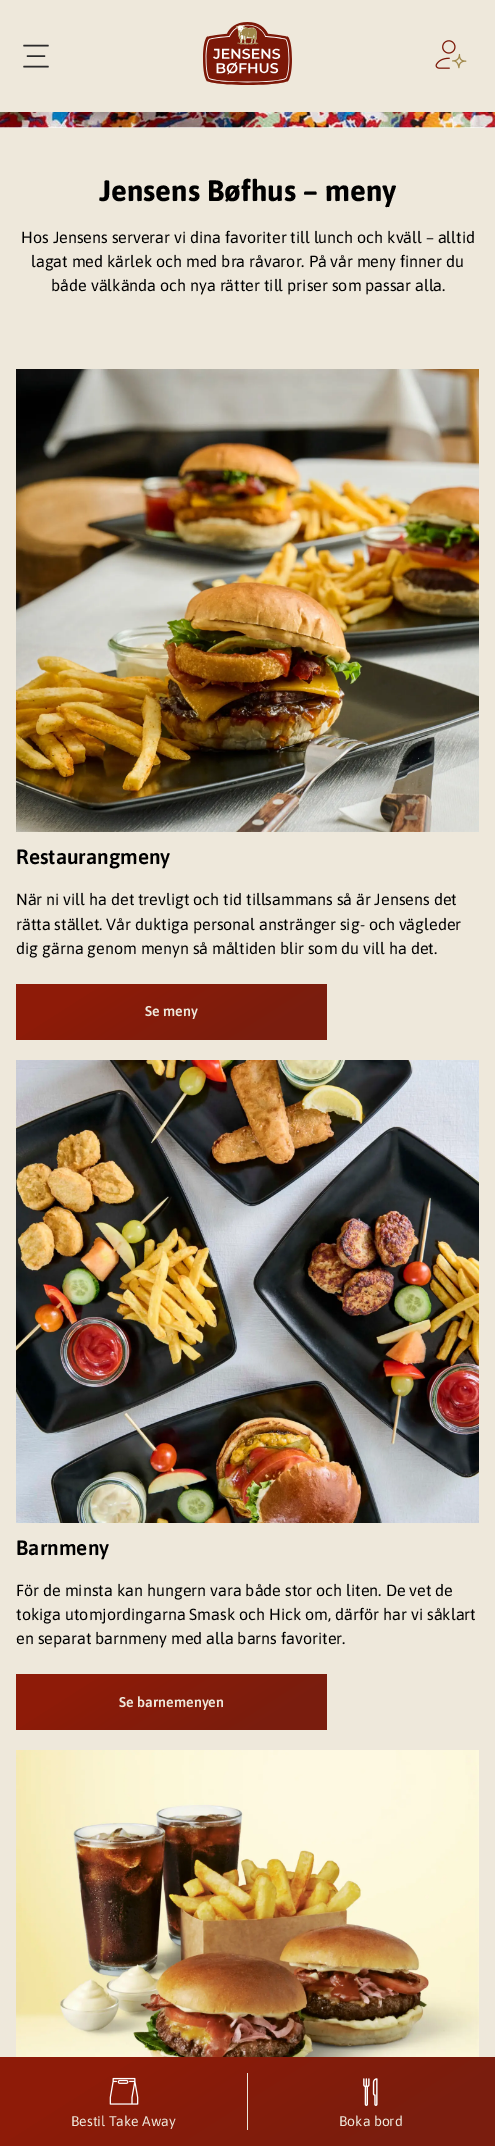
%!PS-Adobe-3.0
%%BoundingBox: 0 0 495 2146
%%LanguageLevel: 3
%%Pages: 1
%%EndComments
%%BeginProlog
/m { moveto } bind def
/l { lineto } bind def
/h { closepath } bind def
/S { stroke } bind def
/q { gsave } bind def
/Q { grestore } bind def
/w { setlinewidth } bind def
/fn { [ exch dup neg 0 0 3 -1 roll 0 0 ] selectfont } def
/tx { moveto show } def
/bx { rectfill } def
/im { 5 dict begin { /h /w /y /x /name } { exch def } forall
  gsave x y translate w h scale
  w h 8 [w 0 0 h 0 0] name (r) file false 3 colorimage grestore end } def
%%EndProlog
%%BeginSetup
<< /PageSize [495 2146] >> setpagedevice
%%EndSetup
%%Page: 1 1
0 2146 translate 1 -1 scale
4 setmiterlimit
0.933 0.91 0.859 setrgbcolor
0 0 495 2146 bx
0.169 setgray
1.5 w
1 setlinecap
1 setlinejoin
24 45.5 m 48 45.5 l 27.5 56 m 44.5 56 l 24 66.5 m 48 66.5 l S
(image0.raw) 203 22 89 63 im
(image1.raw) 435 40 32 29 im
(image2.raw) 0 112 495 16 im
/Asap-Bold 29.5 fn
0 setgray
(Jensens Bøfhus – meny) 99 201 tx
/Asap-Regular 16.15 fn
(Hos Jensens serverar vi dina favoriter till lunch och kväll – alltid) 21 243 tx
(lagat med kärlek och med bra råvaror. På vår meny finner du) 31 267 tx
(både välkända och nya rätter till priser som passar alla.) 51 291 tx
(image3.raw) 16 369 463 463 im
/Asap-SemiBold 20.75 fn
(Restaurangmeny) 16 864 tx
/Asap-Regular 16.15 fn
(När ni vill ha det trevligt och tid tillsammans så är Jensens det) 16 905 tx
(rätta stället. Vår duktiga personal anstränger sig- och vägleder) 16 930 tx
(dig gärna genom menyn så måltiden blir som du vill ha det.) 16 954 tx
q 16 984 m 327 984 l 327 1040 l 16 1040 l h clip newpath
<< /ShadingType 2 /ColorSpace /DeviceRGB /Coords [114 922 229 1102] /Extend [true true] /Function << /FunctionType 3 /Domain [0 1] /Functions [<< /FunctionType 2 /Domain [0 1] /C0 [0.557 0.106 0.031] /C1 [0.557 0.106 0.031] /N 1 >> << /FunctionType 2 /Domain [0 1] /C0 [0.557 0.106 0.031] /C1 [0.478 0.114 0.055] /N 1 >> << /FunctionType 2 /Domain [0 1] /C0 [0.478 0.114 0.055] /C1 [0.478 0.114 0.055] /N 1 >>] /Bounds [0.2 0.81] /Encode [0 1 0 1 0 1] >> >> shfill Q
/Asap-SemiBold 14.25 fn
0.933 0.91 0.859 setrgbcolor
(Se meny) 145 1016 tx
(image4.raw) 16 1060 463 463 im
/Asap-SemiBold 20.75 fn
0 setgray
(Barnmeny) 16 1555 tx
/Asap-Regular 16.15 fn
(För de minsta kan hungern vara både stor och liten. De vet de) 16 1596 tx
(tokiga utomjordingarna Smask och Hick om, därför har vi såklart) 16 1620 tx
(en separat barnmeny med alla barns favoriter.) 16 1644 tx
q 16 1674 m 327 1674 l 327 1730 l 16 1730 l h clip newpath
<< /ShadingType 2 /ColorSpace /DeviceRGB /Coords [114 1612 229 1792] /Extend [true true] /Function << /FunctionType 3 /Domain [0 1] /Functions [<< /FunctionType 2 /Domain [0 1] /C0 [0.557 0.106 0.031] /C1 [0.557 0.106 0.031] /N 1 >> << /FunctionType 2 /Domain [0 1] /C0 [0.557 0.106 0.031] /C1 [0.478 0.114 0.055] /N 1 >> << /FunctionType 2 /Domain [0 1] /C0 [0.478 0.114 0.055] /C1 [0.478 0.114 0.055] /N 1 >>] /Bounds [0.2 0.81] /Encode [0 1 0 1 0 1] >> >> shfill Q
/Asap-SemiBold 14.25 fn
0.933 0.91 0.859 setrgbcolor
(Se barnemenyen) 119 1707 tx
(image5.raw) 16 1750 463 307 im
q 0 2057 m 495 2057 l 495 2146 l 0 2146 l h clip newpath
<< /ShadingType 2 /ColorSpace /DeviceRGB /Coords [156 1958 339 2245] /Extend [true true] /Function << /FunctionType 3 /Domain [0 1] /Functions [<< /FunctionType 2 /Domain [0 1] /C0 [0.557 0.106 0.031] /C1 [0.557 0.106 0.031] /N 1 >> << /FunctionType 2 /Domain [0 1] /C0 [0.557 0.106 0.031] /C1 [0.478 0.114 0.055] /N 1 >> << /FunctionType 2 /Domain [0 1] /C0 [0.478 0.114 0.055] /C1 [0.478 0.114 0.055] /N 1 >>] /Bounds [0.2 0.81] /Encode [0 1 0 1 0 1] >> >> shfill Q
(image6.raw) 109 2077 30 28 im
/Asap-Regular 14 fn
(Bestil Take Away) 71 2126 tx
247 2073 1 57 bx
(image7.raw) 363 2078 15 28 im
(Boka bord) 339 2126 tx
showpage
%%EOF
